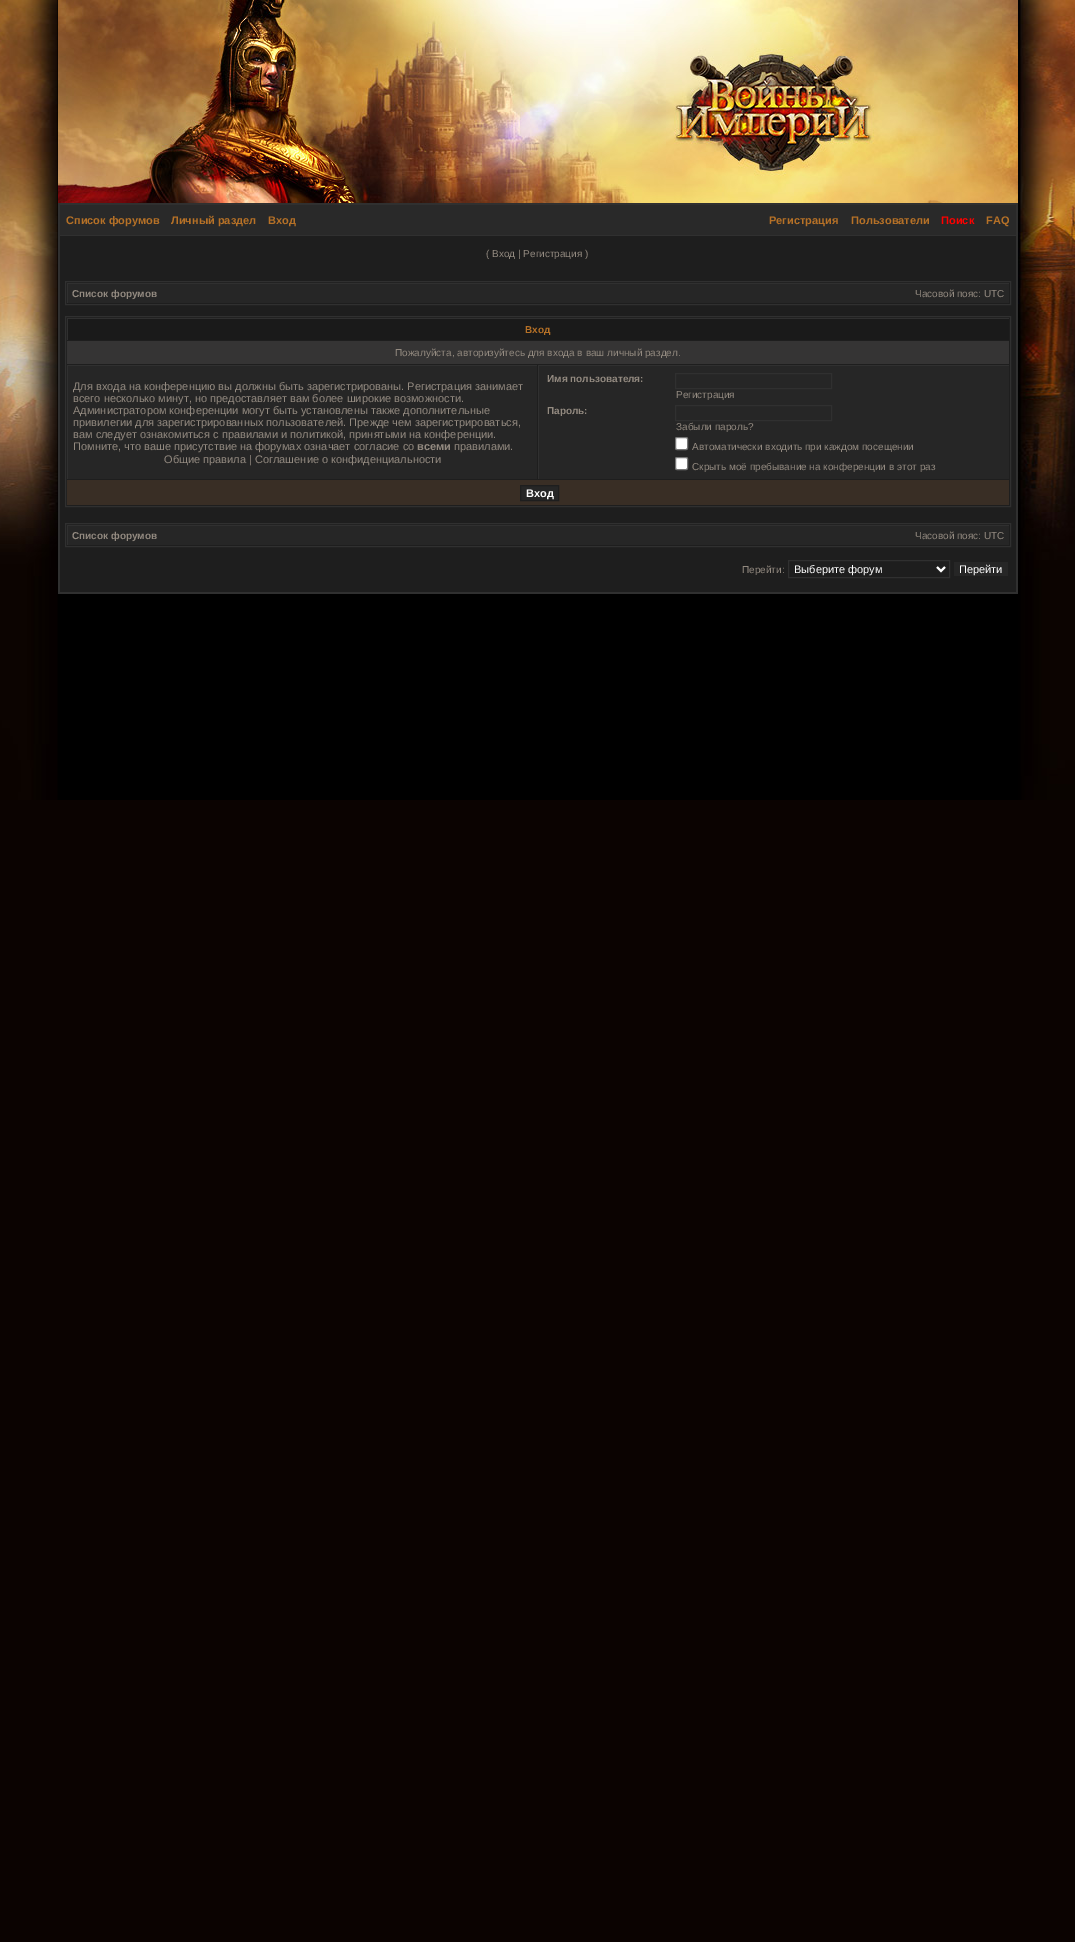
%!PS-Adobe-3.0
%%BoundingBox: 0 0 1075 1942
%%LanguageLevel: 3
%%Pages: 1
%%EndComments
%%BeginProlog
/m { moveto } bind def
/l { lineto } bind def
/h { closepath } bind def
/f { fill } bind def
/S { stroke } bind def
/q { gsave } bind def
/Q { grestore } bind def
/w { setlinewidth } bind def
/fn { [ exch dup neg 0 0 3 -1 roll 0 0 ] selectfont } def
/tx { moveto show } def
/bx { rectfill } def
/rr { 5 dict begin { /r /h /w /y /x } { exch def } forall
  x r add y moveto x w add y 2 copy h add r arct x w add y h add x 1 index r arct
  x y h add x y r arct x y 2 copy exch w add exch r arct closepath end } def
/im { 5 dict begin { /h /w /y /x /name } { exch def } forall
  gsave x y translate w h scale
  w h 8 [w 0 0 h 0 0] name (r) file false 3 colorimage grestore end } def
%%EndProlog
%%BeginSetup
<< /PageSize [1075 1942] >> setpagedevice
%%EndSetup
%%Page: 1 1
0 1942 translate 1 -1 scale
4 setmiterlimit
0.043 0.012 0.004 setrgbcolor
0 0 1075 1942 bx
(image0.raw) 0 0 1075 800 im
(image1.raw) 58 0 960 203 im
0.188 setgray
58 203 960 1 bx
1016 203 2 391 bx
58 592 960 2 bx
58 203 2 391 bx
0.118 setgray
60 236 956 356 bx
0.161 setgray
60 205 956 30 bx
0.188 setgray
60 204 956 1 bx
60 235 956 1 bx
/LiberationSans-Bold 11 fn
0.714 0.443 0.153 setrgbcolor
(Список форумов) 66 224 tx
(Личный раздел) 171 224 tx
(Вход) 268 224 tx
(Регистрация) 769 224 tx
(Пользователи) 851 224 tx
1 0 0 setrgbcolor
(Поиск) 941 224 tx
0.714 0.443 0.153 setrgbcolor
(FAQ) 986 224 tx
/LiberationSans-Regular 10 fn
0.576 0.541 0.502 setrgbcolor
(\( Вход | Регистрация \)) 486 257 tx
0.188 setgray
65.5 281.5 945 23 rectstroke
0.149 setgray
68 284 941 19 bx
0.188 setgray
67 283 942 1 bx
67 283 1 20 bx
/LiberationSans-Bold 10 fn
0.576 0.541 0.502 setrgbcolor
(Список форумов) 72 297 tx
/LiberationSans-Regular 10 fn
(Часовой пояс: UTC) 915 297 tx
0.188 setgray
65.5 316.5 945 190 rectstroke
0.102 setgray
68 319 941 21 bx
0.188 setgray
67 318 942 1 bx
67 318 1 22 bx
/LiberationSans-Bold 10 fn
0.714 0.443 0.153 setrgbcolor
(Вход) 525 333 tx
0.208 0.204 0.204 setrgbcolor
67 341 942 23 bx
/LiberationSans-Regular 10 fn
0.576 0.541 0.502 setrgbcolor
(Пожалуйста, авторизуйтесь для входа в ваш личный раздел.) 395 356 tx
0.149 setgray
68 366 469 113 bx
0.188 setgray
67 365 470 1 bx
67 365 1 114 bx
/LiberationSans-Regular 11 fn
0.576 0.541 0.502 setrgbcolor
(Для входа на конференцию вы должны быть зарегистрированы. Регистрация занимает) 73 390 tx
(всего несколько минут, но предоставляет вам более широкие возможности.) 73 402 tx
(Администратором конференции могут быть установлены также дополнительные) 73 414 tx
(привилегии для зарегистрированных пользователей. Прежде чем зарегистрироваться,) 73 426 tx
(вам следует ознакомиться с правилами и политикой, принятыми на конференции.) 73 438 tx
(Помните, что ваше присутствие на форумах означает согласие со) 73 450 tx
/LiberationSans-Bold 11 fn
(всеми) 417 450 tx
/LiberationSans-Regular 11 fn
(правилами.) 454 450 tx
(Общие правила | Соглашение о конфиденциальности) 164 463 tx
0.149 setgray
539 366 470 113 bx
0.188 setgray
538 365 471 1 bx
538 365 1 114 bx
/LiberationSans-Bold 10 fn
0.576 0.541 0.502 setrgbcolor
(Имя пользователя:) 547 382 tx
0.188 setgray
675.5 373.5 156 15 rectstroke
/LiberationSans-Regular 10 fn
0.576 0.541 0.502 setrgbcolor
(Регистрация) 676 398 tx
/LiberationSans-Bold 10 fn
(Пароль:) 547 414 tx
0.188 setgray
675.5 405.5 156 15 rectstroke
/LiberationSans-Regular 10 fn
0.576 0.541 0.502 setrgbcolor
(Забыли пароль?) 676 430 tx
1 setgray
675.5 437.5 12 12 1.5 rr q f Q
0.463 setgray
S
0.576 0.541 0.502 setrgbcolor
(Автоматически входить при каждом посещении) 692 450 tx
1 setgray
675.5 457.5 12 12 1.5 rr q f Q
0.463 setgray
S
0.576 0.541 0.502 setrgbcolor
(Скрыть моё пребывание на конференции в этот раз) 692 470 tx
0.224 0.18 0.145 setrgbcolor
67 480 942 25 bx
0.149 setgray
520.5 485.5 m 558.5 485.5 l 558.5 500.5 l 520.5 500.5 l h q f Q
0.118 setgray
S
/LiberationSans-Bold 11 fn
1 setgray
(Вход) 526 497 tx
0.188 setgray
65.5 523.5 945 23 rectstroke
0.149 setgray
68 526 941 19 bx
0.188 setgray
67 525 942 1 bx
67 525 1 20 bx
/LiberationSans-Bold 10 fn
0.576 0.541 0.502 setrgbcolor
(Список форумов) 72 539 tx
/LiberationSans-Regular 10 fn
(Часовой пояс: UTC) 915 539 tx
(Перейти:) 742 573 tx
0.188 setgray
788.5 560.5 161 17 rectstroke
1 setgray
2 w
937 567 m 941 571 l 945 567 l S
/LiberationSans-Regular 11 fn
(Выберите форум) 794 573 tx
0.149 setgray
954 562 54 14 bx
1 setgray
(Перейти) 959 573 tx
showpage
%%EOF
